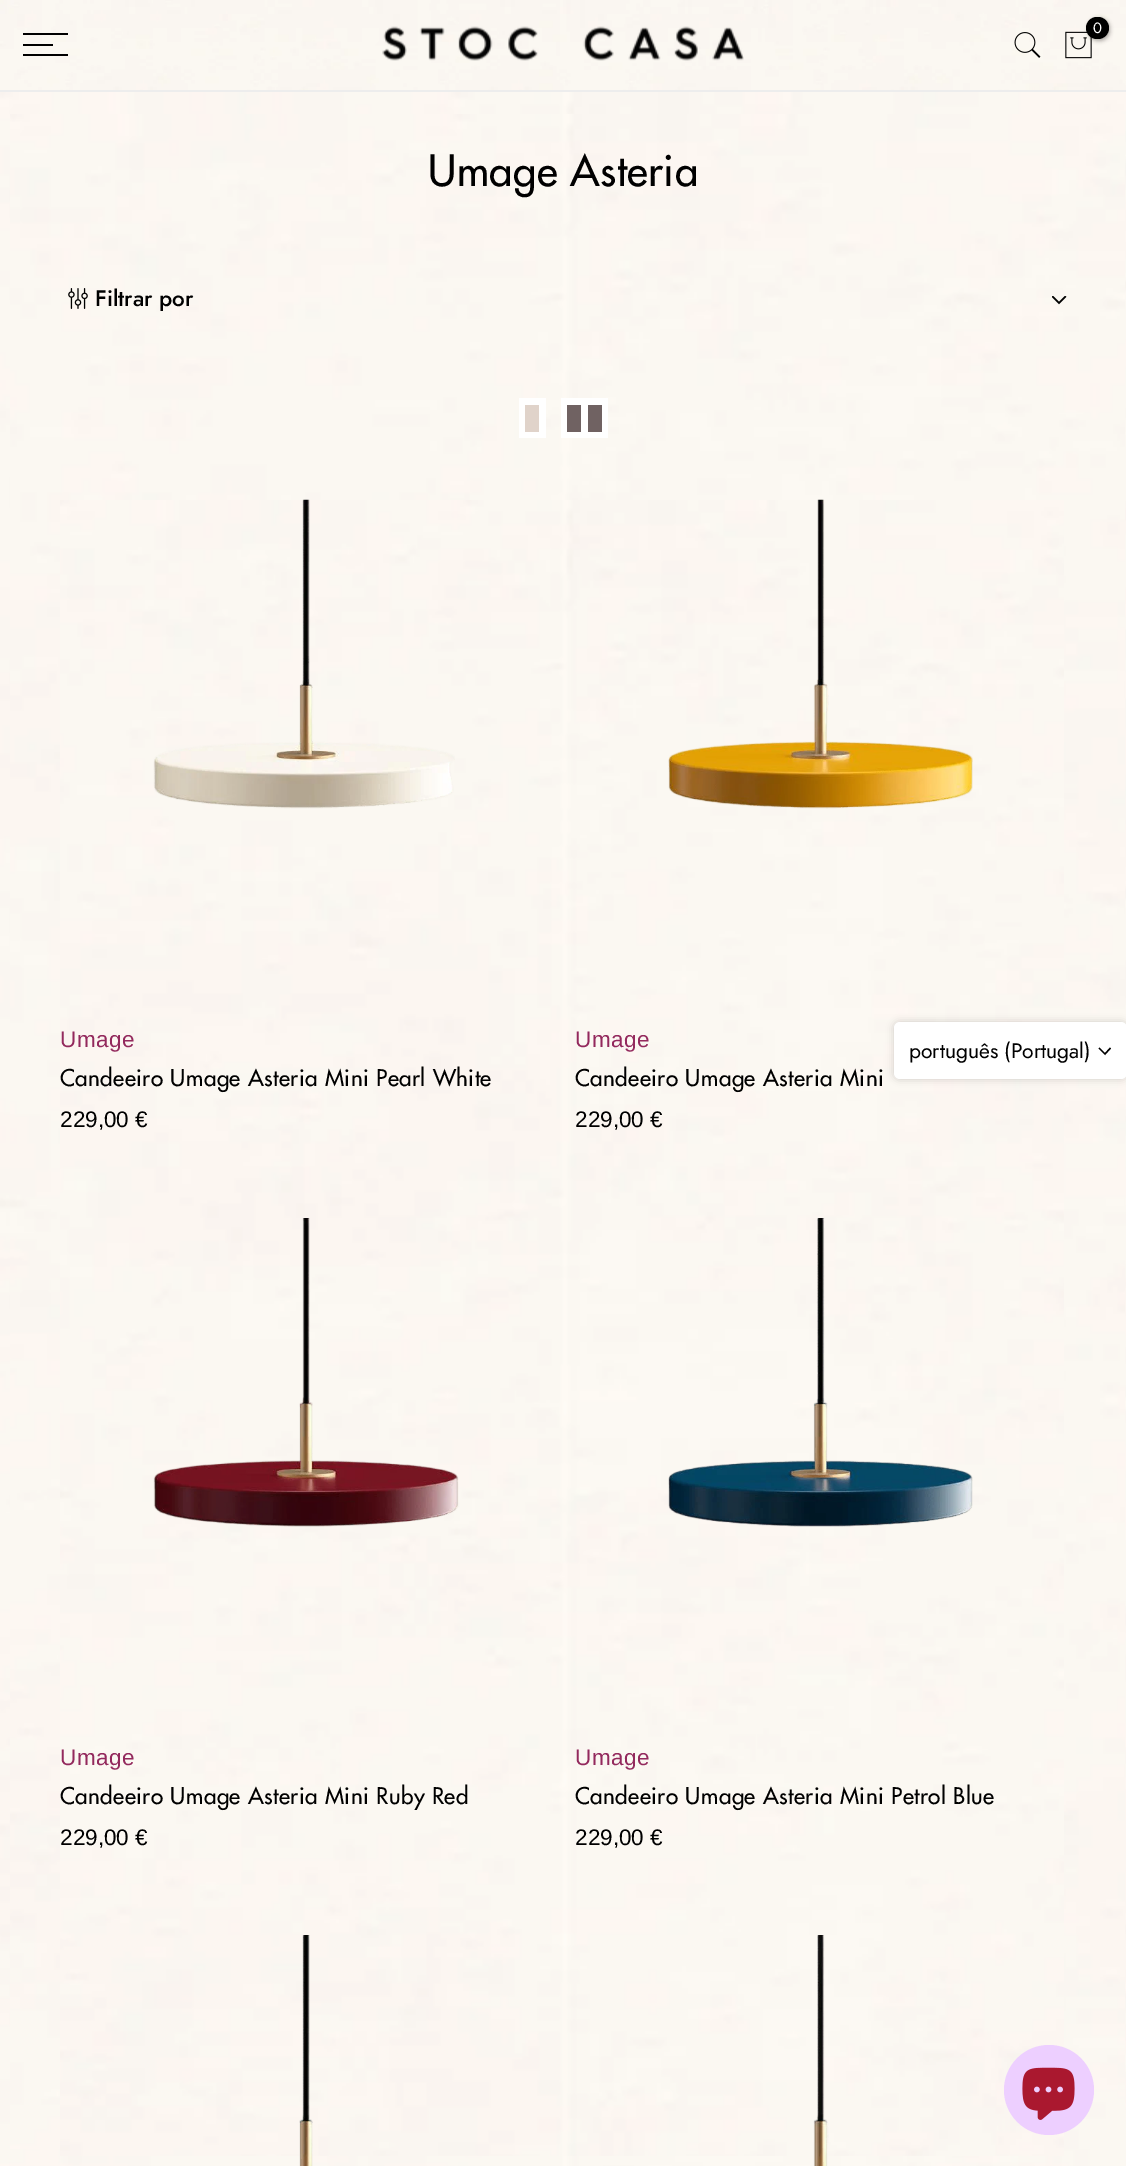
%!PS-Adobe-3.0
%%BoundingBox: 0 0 1126 2166
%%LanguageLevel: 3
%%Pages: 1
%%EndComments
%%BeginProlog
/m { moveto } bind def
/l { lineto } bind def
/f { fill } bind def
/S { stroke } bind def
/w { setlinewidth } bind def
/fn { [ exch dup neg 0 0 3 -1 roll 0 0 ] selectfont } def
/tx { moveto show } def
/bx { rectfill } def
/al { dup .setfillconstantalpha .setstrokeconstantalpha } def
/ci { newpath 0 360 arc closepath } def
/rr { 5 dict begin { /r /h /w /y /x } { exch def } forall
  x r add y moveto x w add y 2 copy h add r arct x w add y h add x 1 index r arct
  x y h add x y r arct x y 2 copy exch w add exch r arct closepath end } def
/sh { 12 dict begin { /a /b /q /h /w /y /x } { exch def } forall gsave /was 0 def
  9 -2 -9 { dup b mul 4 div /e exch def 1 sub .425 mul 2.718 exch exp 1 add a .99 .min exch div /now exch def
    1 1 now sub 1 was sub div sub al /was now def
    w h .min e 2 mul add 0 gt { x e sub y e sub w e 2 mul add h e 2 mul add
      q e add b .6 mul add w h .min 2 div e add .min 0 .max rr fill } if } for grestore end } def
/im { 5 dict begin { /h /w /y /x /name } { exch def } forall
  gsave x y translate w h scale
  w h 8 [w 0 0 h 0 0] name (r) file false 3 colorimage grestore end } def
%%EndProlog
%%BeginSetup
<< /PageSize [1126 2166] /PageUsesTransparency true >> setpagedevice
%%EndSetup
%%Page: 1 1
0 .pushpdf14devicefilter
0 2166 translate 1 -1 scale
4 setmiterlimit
1 setgray
0 0 1126 2166 bx
(image0.raw) 0 0 1126 90 im
0 setgray
23 33 45 2 bx
23 44 30 2 bx
23 54 45 2 bx
(image1.raw) 382 26 362 35 im
(image2.raw) 1065 31 27 28 im
1088 18 22 23 11 2 0.3 sh
1086 17 23 22 11 rr f
/Jost-Regular 15 fn
1 setgray
(0) 1093 33 tx
(image3.raw) 1014 32 27 26 im
(image4.raw) 0 92 1126 2074 im
0.929 setgray
0 90 1126 2 bx
(image5.raw) 10 114 1115 2035 im
/Futura-Medium 42 fn
0 setgray
428 186 m 0.45 0 (Umage Asteria) ashow
(image6.raw) 68 288 20 21 im
/Jost-Medium 22.5 fn
(Filtrar por) 95 306 tx
(image7.raw) 1052 296 15 9 im
1 setgray
519 398 27 40 bx
0.878 0.827 0.792 setrgbcolor
525 405 14 27 bx
1 setgray
561 398 47 40 bx
0.439 0.384 0.384 setrgbcolor
567 405 14 27 bx
588 405 14 27 bx
(image8.raw) 60 500 1004 1656 im
(image9.raw) 153 499 302 310 im
/LiberationSans-Regular 22.5 fn
0.576 0.161 0.365 setrgbcolor
60 1047 m 0.45 0 (Umage) ashow
/Futura-Medium 22.5 fn
0 setgray
60 1086 m 0.45 0 (Candeeiro Umage Asteria Mini Pearl White) ashow
/LiberationSans-Regular 22.5 fn
(229,00 €) 60 1127 tx
(image10.raw) 668 499 305 310 im
0.576 0.161 0.365 setrgbcolor
575 1047 m 0.45 0 (Umage) ashow
/Futura-Medium 22.5 fn
0 setgray
575 1086 m 0.45 0 (Candeeiro Umage Asteria Mini) ashow
/LiberationSans-Regular 22.5 fn
(229,00 €) 575 1127 tx
(image11.raw) 153 1218 306 309 im
0.576 0.161 0.365 setrgbcolor
60 1765 m 0.45 0 (Umage) ashow
/Futura-Medium 22.5 fn
0 setgray
60 1804 m 0.45 0 (Candeeiro Umage Asteria Mini Ruby Red) ashow
/LiberationSans-Regular 22.5 fn
(229,00 €) 60 1845 tx
(image12.raw) 668 1218 305 309 im
0.576 0.161 0.365 setrgbcolor
575 1765 m 0.45 0 (Umage) ashow
/Futura-Medium 22.5 fn
0 setgray
575 1804 m 0.45 0 (Candeeiro Umage Asteria Mini Petrol Blue) ashow
/LiberationSans-Regular 22.5 fn
(229,00 €) 575 1845 tx
(image13.raw) 299 1935 14 231 im
(image14.raw) 813 1935 16 231 im
894 1022 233 57 6 4 0.17 sh
1 setgray
894 1022 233 57 6 rr f
/Jost-Regular 21 fn
0 setgray
(português \(Portugal\)) 909 1058 tx
1.4 w
2 setlinecap
1110 1048.5 m 1105 1054 l 1099.5 1048.5 l S
0.929 0.812 1 setrgbcolor
1049 2090 45 ci f
(image15.raw) 1022 2067 53 53 im
.poppdf14devicefilter showpage
%%EOF
